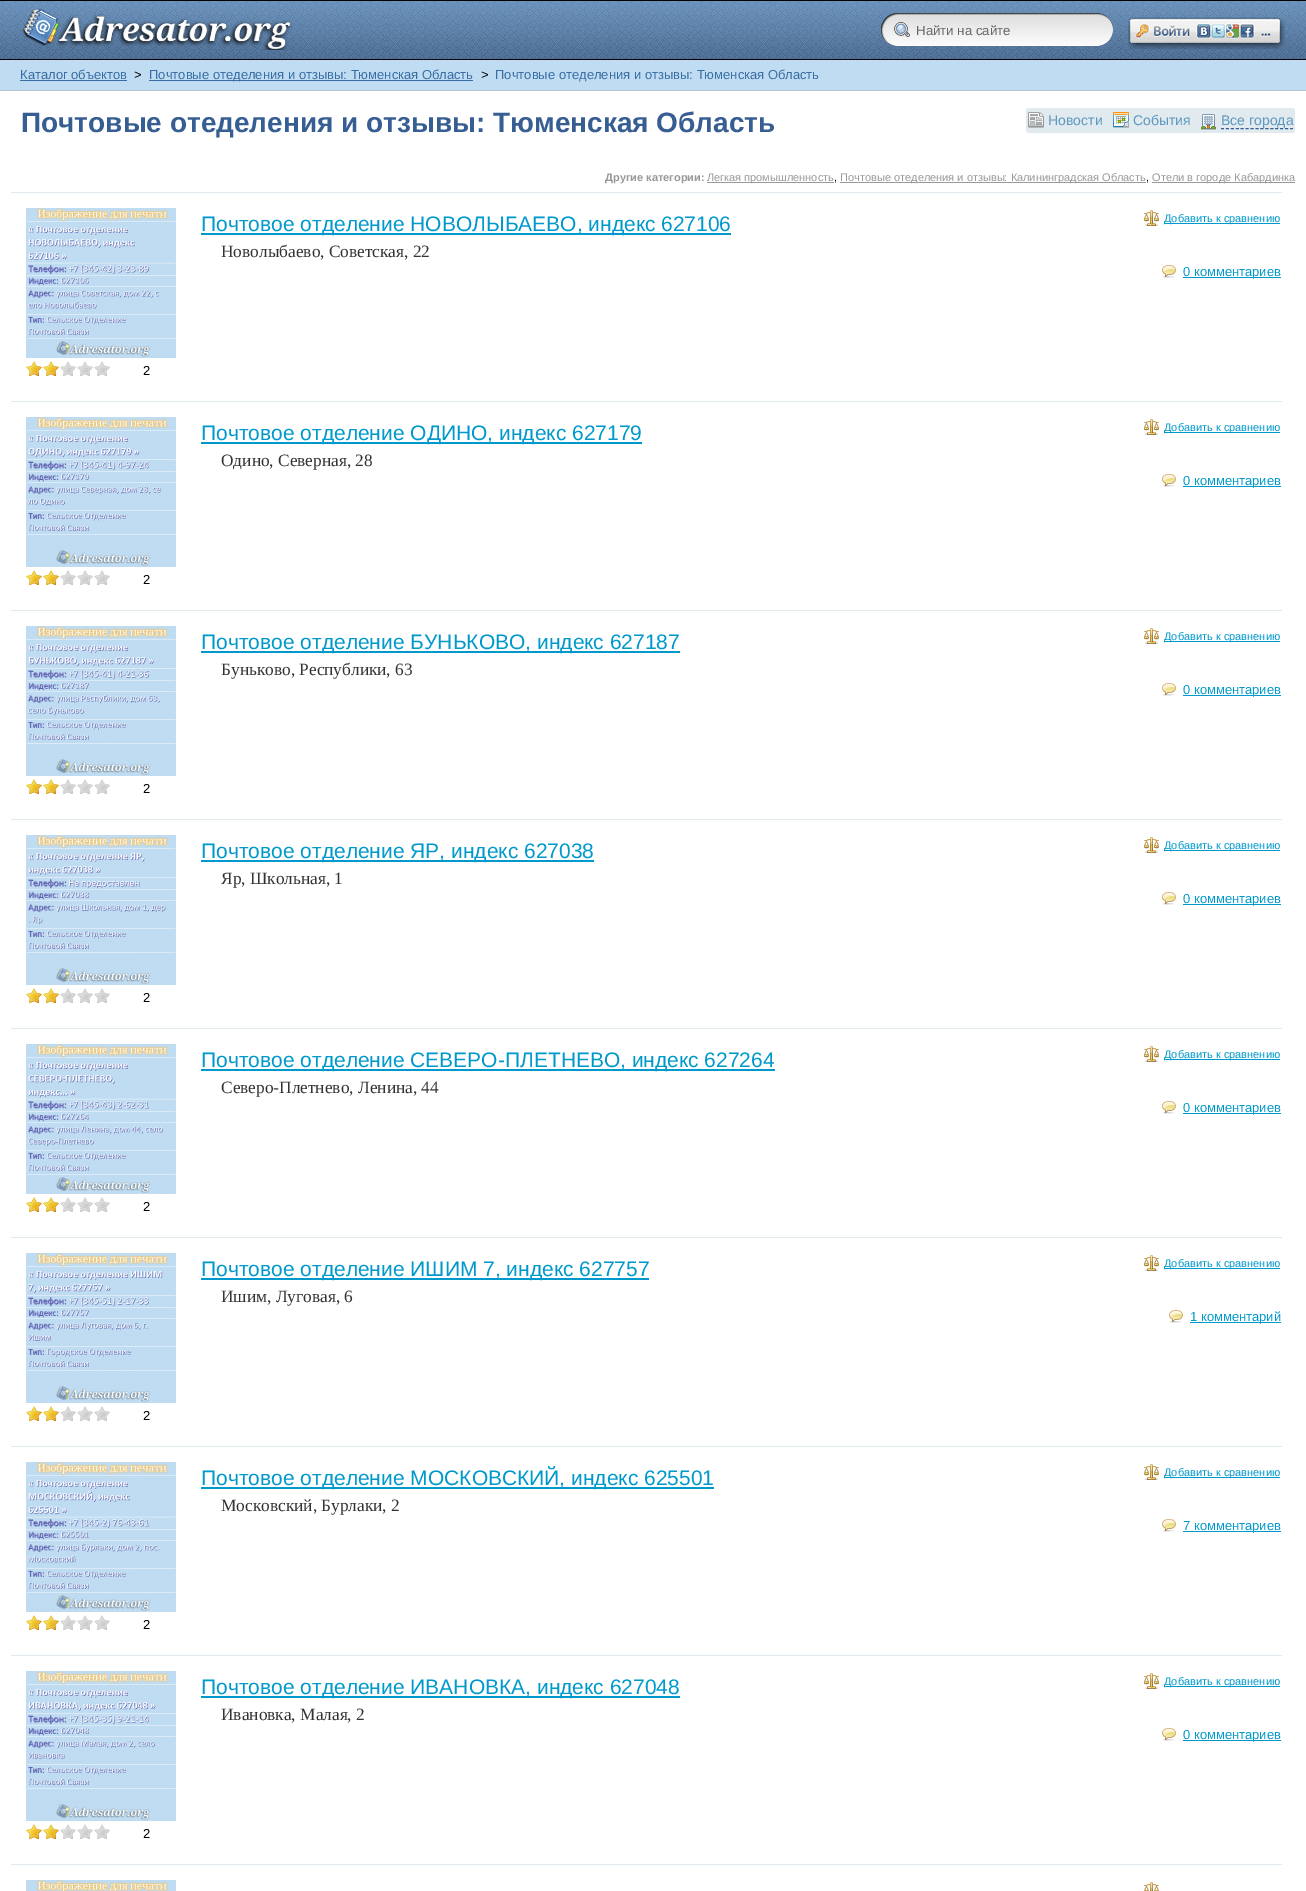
%!PS-Adobe-3.0
%%BoundingBox: 0 0 1306 1891
%%LanguageLevel: 3
%%Pages: 1
%%EndComments
%%BeginProlog
/m { moveto } bind def
/l { lineto } bind def
/f { fill } bind def
/S { stroke } bind def
/fn { [ exch dup neg 0 0 3 -1 roll 0 0 ] selectfont } def
/tx { moveto show } def
/bx { rectfill } def
/rr { 5 dict begin { /r /h /w /y /x } { exch def } forall
  x r add y moveto x w add y 2 copy h add r arct x w add y h add x 1 index r arct
  x y h add x y r arct x y 2 copy exch w add exch r arct closepath end } def
/im { 5 dict begin { /h /w /y /x /name } { exch def } forall
  gsave x y translate w h scale
  w h 8 [w 0 0 h 0 0] name (r) file false 3 colorimage grestore end } def
%%EndProlog
%%BeginSetup
<< /PageSize [1306 1891] >> setpagedevice
%%EndSetup
%%Page: 1 1
0 1891 translate 1 -1 scale
4 setmiterlimit
1 setgray
0 0 1306 1891 bx
(image0.raw) 0 0 1306 60 im
(image1.raw) 22 8 270 42 im
(image2.raw) 881 13 232 33 im
/LiberationSans-Regular 13.25 fn
0.4 setgray
(Найти на сайте) 916 35 tx
(image3.raw) 1128 17 158 32 im
0.749 0.863 0.949 setrgbcolor
0 60 1306 30 bx
0.686 0.776 0.808 setrgbcolor
0 90 1306 1 bx
/LiberationSans-Regular 13 fn
0.224 0.431 0.643 setrgbcolor
(Каталог объектов) 20 79 tx
20 80 107 1 bx
0 setgray
(>) 134 79 tx
0.224 0.431 0.643 setrgbcolor
149 80 324 1 bx
(Почтовые отеделения и отзывы: Тюменская Область) 149 79 tx
0 setgray
(>) 481 79 tx
0.224 0.431 0.643 setrgbcolor
(Почтовые отеделения и отзывы: Тюменская Область) 495 79 tx
/LiberationSans-Bold 28 fn
0.216 0.369 0.576 setrgbcolor
(Почтовые отеделения и отзывы: Тюменская Область) 21 132 tx
0.878 0.918 0.937 setrgbcolor
1026 108 269 25 3 rr f
(image4.raw) 1028 112 16 16 im
/LiberationSans-Regular 14 fn
0.373 0.596 0.749 setrgbcolor
(Новости) 1048 125 tx
(image5.raw) 1113 112 16 16 im
(События) 1133 125 tx
(image6.raw) 1201 114 15 16 im
(Все города) 1221 125 tx
0.216 0.369 0.576 setrgbcolor
[3 1.93] 0 setdash
1221 128.5 m 1293 128.5 l S
/LiberationSans-Bold 11 fn
0.6 setgray
(Другие категории:) 605 181 tx
707 182 127 1 bx
/LiberationSans-Regular 11 fn
(Легкая промышленность) 707 181 tx
0 setgray
(,) 834 181 tx
0.6 setgray
840 182 306 1 bx
(Почтовые отеделения и отзывы: Калининградская Область) 840 181 tx
0 setgray
(,) 1146 181 tx
0.6 setgray
1152 182 143 1 bx
(Отели в городе Кабардинка) 1152 181 tx
0.878 0.918 0.937 setrgbcolor
11 192 1271 1 bx
0 0.6 0.8 setrgbcolor
201 233 530 2 bx
/LiberationSans-Regular 21 fn
(Почтовое отделение НОВОЛЫБАЕВО, индекс 627106) 201 231 tx
(image7.raw) 1144 210 15 16 im
1164 223 116 1 bx
/LiberationSans-Regular 11 fn
(Добавить к сравнению) 1164 222 tx
/LiberationSerif-Regular 17.3 fn
0.2 setgray
(Новолыбаево, Советская, 22) 221 257 tx
(image8.raw) 1162 265 14 13 im
0 0.6 0.8 setrgbcolor
1183 277 98 1 bx
/LiberationSans-Regular 13 fn
(0 комментариев) 1183 276 tx
(image9.raw) 26 208 150 150 im
(image10.raw) 26 361 16 15 im
(image10.raw) 43 361 16 15 im
(image11.raw) 60 361 16 15 im
(image11.raw) 77 361 16 15 im
(image11.raw) 94 361 16 15 im
0 setgray
(2) 143 375 tx
0.878 0.918 0.937 setrgbcolor
11 401 1271 1 bx
0 0.6 0.8 setrgbcolor
201 442 441 2 bx
/LiberationSans-Regular 21 fn
(Почтовое отделение ОДИНО, индекс 627179) 201 440 tx
(image7.raw) 1144 419 15 16 im
1164 432 116 1 bx
/LiberationSans-Regular 11 fn
(Добавить к сравнению) 1164 431 tx
/LiberationSerif-Regular 17.3 fn
0.2 setgray
(Одино, Северная, 28) 221 466 tx
(image8.raw) 1162 474 14 13 im
0 0.6 0.8 setrgbcolor
1183 486 98 1 bx
/LiberationSans-Regular 13 fn
(0 комментариев) 1183 485 tx
(image12.raw) 26 417 150 150 im
(image10.raw) 26 570 16 15 im
(image10.raw) 43 570 16 15 im
(image11.raw) 60 570 16 15 im
(image11.raw) 77 570 16 15 im
(image11.raw) 94 570 16 15 im
0 setgray
(2) 143 584 tx
0.878 0.918 0.937 setrgbcolor
11 610 1271 1 bx
0 0.6 0.8 setrgbcolor
201 651 479 2 bx
/LiberationSans-Regular 21 fn
(Почтовое отделение БУНЬКОВО, индекс 627187) 201 649 tx
(image7.raw) 1144 628 15 16 im
1164 641 116 1 bx
/LiberationSans-Regular 11 fn
(Добавить к сравнению) 1164 640 tx
/LiberationSerif-Regular 17.3 fn
0.2 setgray
(Буньково, Республики, 63) 221 675 tx
(image8.raw) 1162 683 14 13 im
0 0.6 0.8 setrgbcolor
1183 695 98 1 bx
/LiberationSans-Regular 13 fn
(0 комментариев) 1183 694 tx
(image13.raw) 26 626 150 150 im
(image10.raw) 26 779 16 15 im
(image10.raw) 43 779 16 15 im
(image11.raw) 60 779 16 15 im
(image11.raw) 77 779 16 15 im
(image11.raw) 94 779 16 15 im
0 setgray
(2) 143 793 tx
0.878 0.918 0.937 setrgbcolor
11 819 1271 1 bx
0 0.6 0.8 setrgbcolor
201 860 393 2 bx
/LiberationSans-Regular 21 fn
(Почтовое отделение ЯР, индекс 627038) 201 858 tx
(image7.raw) 1144 837 15 16 im
1164 850 116 1 bx
/LiberationSans-Regular 11 fn
(Добавить к сравнению) 1164 849 tx
/LiberationSerif-Regular 17.3 fn
0.2 setgray
(Яр, Школьная, 1) 221 884 tx
(image8.raw) 1162 892 14 13 im
0 0.6 0.8 setrgbcolor
1183 904 98 1 bx
/LiberationSans-Regular 13 fn
(0 комментариев) 1183 903 tx
(image14.raw) 26 835 150 150 im
(image10.raw) 26 988 16 15 im
(image10.raw) 43 988 16 15 im
(image11.raw) 60 988 16 15 im
(image11.raw) 77 988 16 15 im
(image11.raw) 94 988 16 15 im
0 setgray
(2) 143 1002 tx
0.878 0.918 0.937 setrgbcolor
11 1028 1271 1 bx
0 0.6 0.8 setrgbcolor
201 1069 574 2 bx
/LiberationSans-Regular 21 fn
(Почтовое отделение СЕВЕРО-ПЛЕТНЕВО, индекс 627264) 201 1067 tx
(image7.raw) 1144 1046 15 16 im
1164 1059 116 1 bx
/LiberationSans-Regular 11 fn
(Добавить к сравнению) 1164 1058 tx
/LiberationSerif-Regular 17.3 fn
0.2 setgray
(Северо-Плетнево, Ленина, 44) 221 1093 tx
(image8.raw) 1162 1101 14 13 im
0 0.6 0.8 setrgbcolor
1183 1113 98 1 bx
/LiberationSans-Regular 13 fn
(0 комментариев) 1183 1112 tx
(image15.raw) 26 1044 150 150 im
(image10.raw) 26 1197 16 15 im
(image10.raw) 43 1197 16 15 im
(image11.raw) 60 1197 16 15 im
(image11.raw) 77 1197 16 15 im
(image11.raw) 94 1197 16 15 im
0 setgray
(2) 143 1211 tx
0.878 0.918 0.937 setrgbcolor
11 1237 1271 1 bx
0 0.6 0.8 setrgbcolor
201 1278 448 2 bx
/LiberationSans-Regular 21 fn
(Почтовое отделение ИШИМ 7, индекс 627757) 201 1276 tx
(image7.raw) 1144 1255 15 16 im
1164 1268 116 1 bx
/LiberationSans-Regular 11 fn
(Добавить к сравнению) 1164 1267 tx
/LiberationSerif-Regular 17.3 fn
0.2 setgray
(Ишим, Луговая, 6) 221 1302 tx
(image8.raw) 1169 1310 14 13 im
0 0.6 0.8 setrgbcolor
1190 1322 91 1 bx
/LiberationSans-Regular 13 fn
(1 комментарий) 1190 1321 tx
(image16.raw) 26 1253 150 150 im
(image10.raw) 26 1406 16 15 im
(image10.raw) 43 1406 16 15 im
(image11.raw) 60 1406 16 15 im
(image11.raw) 77 1406 16 15 im
(image11.raw) 94 1406 16 15 im
0 setgray
(2) 143 1420 tx
0.878 0.918 0.937 setrgbcolor
11 1446 1271 1 bx
0 0.6 0.8 setrgbcolor
201 1487 513 2 bx
/LiberationSans-Regular 21 fn
(Почтовое отделение МОСКОВСКИЙ, индекс 625501) 201 1485 tx
(image7.raw) 1144 1464 15 16 im
1164 1477 116 1 bx
/LiberationSans-Regular 11 fn
(Добавить к сравнению) 1164 1476 tx
/LiberationSerif-Regular 17.3 fn
0.2 setgray
(Московский, Бурлаки, 2) 221 1511 tx
(image8.raw) 1162 1519 14 13 im
0 0.6 0.8 setrgbcolor
1183 1531 98 1 bx
/LiberationSans-Regular 13 fn
(7 комментариев) 1183 1530 tx
(image17.raw) 26 1462 150 150 im
(image10.raw) 26 1615 16 15 im
(image10.raw) 43 1615 16 15 im
(image11.raw) 60 1615 16 15 im
(image11.raw) 77 1615 16 15 im
(image11.raw) 94 1615 16 15 im
0 setgray
(2) 143 1629 tx
0.878 0.918 0.937 setrgbcolor
11 1655 1271 1 bx
0 0.6 0.8 setrgbcolor
201 1696 479 2 bx
/LiberationSans-Regular 21 fn
(Почтовое отделение ИВАНОВКА, индекс 627048) 201 1694 tx
(image7.raw) 1144 1673 15 16 im
1164 1686 116 1 bx
/LiberationSans-Regular 11 fn
(Добавить к сравнению) 1164 1685 tx
/LiberationSerif-Regular 17.3 fn
0.2 setgray
(Ивановка, Малая, 2) 221 1720 tx
(image8.raw) 1162 1728 14 13 im
0 0.6 0.8 setrgbcolor
1183 1740 98 1 bx
/LiberationSans-Regular 13 fn
(0 комментариев) 1183 1739 tx
(image18.raw) 26 1671 150 150 im
(image10.raw) 26 1824 16 15 im
(image10.raw) 43 1824 16 15 im
(image11.raw) 60 1824 16 15 im
(image11.raw) 77 1824 16 15 im
(image11.raw) 94 1824 16 15 im
0 setgray
(2) 143 1838 tx
0.878 0.918 0.937 setrgbcolor
11 1864 1271 1 bx
(image19.raw) 26 1880 150 11 im
(image20.raw) 1144 1882 15 9 im
showpage
%%EOF
